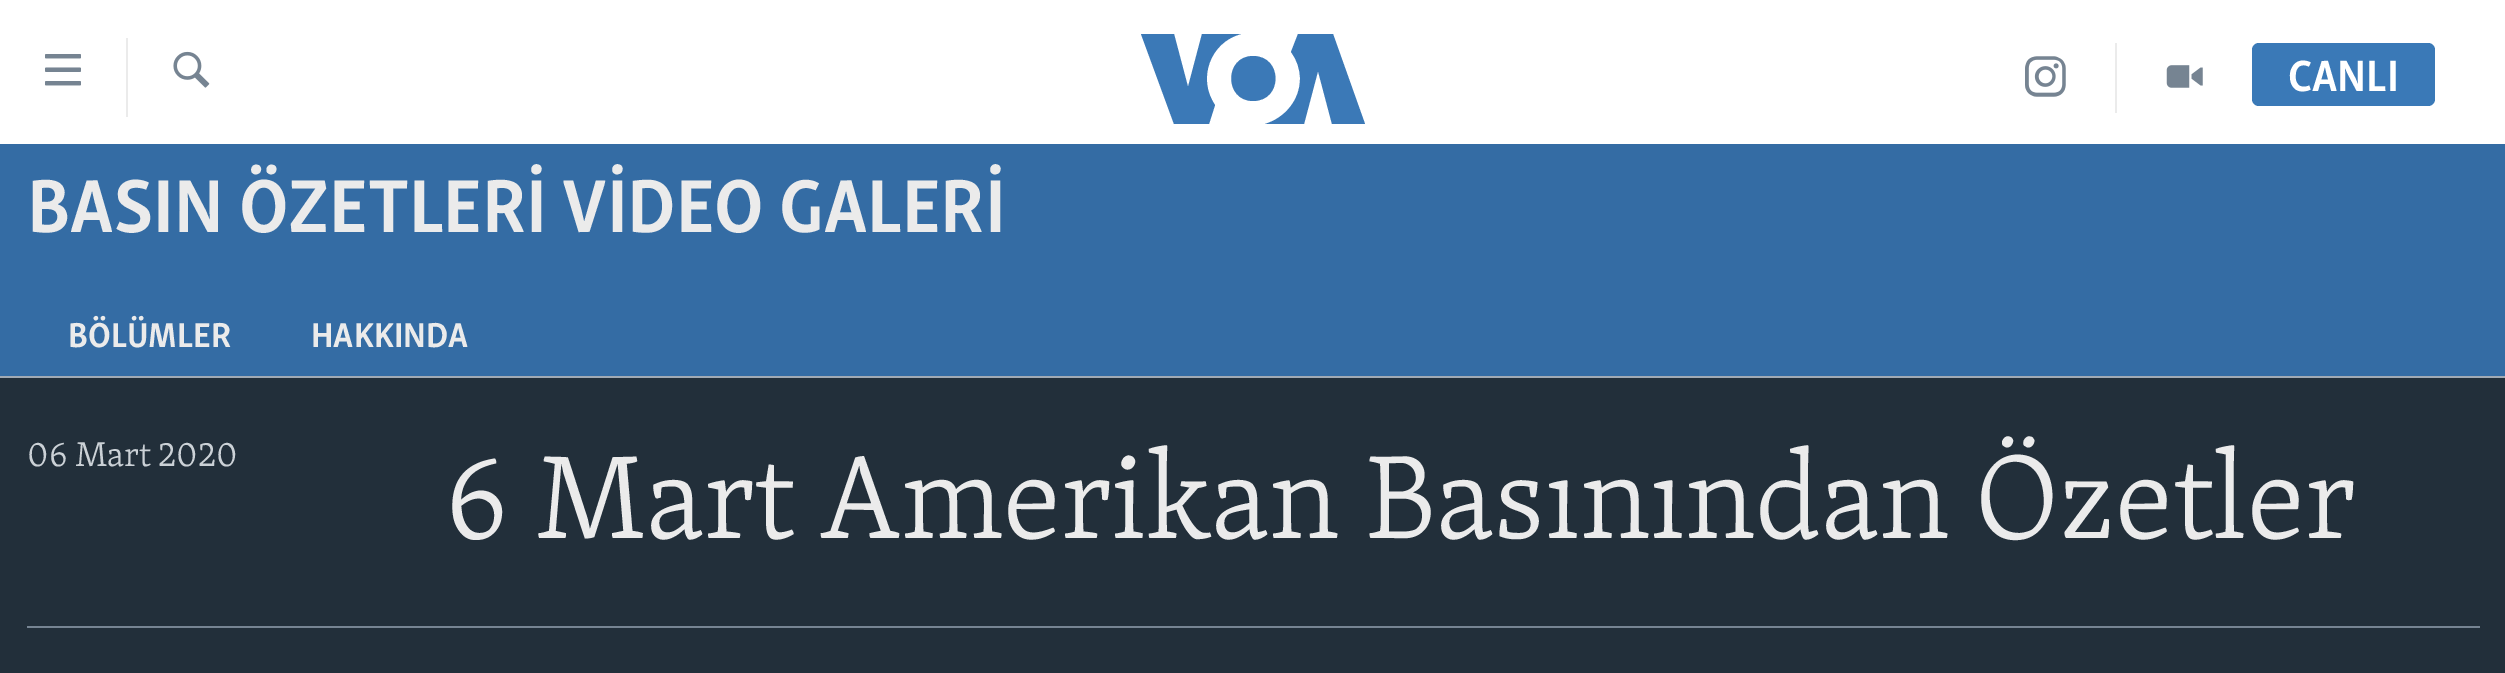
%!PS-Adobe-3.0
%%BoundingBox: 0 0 2505 673
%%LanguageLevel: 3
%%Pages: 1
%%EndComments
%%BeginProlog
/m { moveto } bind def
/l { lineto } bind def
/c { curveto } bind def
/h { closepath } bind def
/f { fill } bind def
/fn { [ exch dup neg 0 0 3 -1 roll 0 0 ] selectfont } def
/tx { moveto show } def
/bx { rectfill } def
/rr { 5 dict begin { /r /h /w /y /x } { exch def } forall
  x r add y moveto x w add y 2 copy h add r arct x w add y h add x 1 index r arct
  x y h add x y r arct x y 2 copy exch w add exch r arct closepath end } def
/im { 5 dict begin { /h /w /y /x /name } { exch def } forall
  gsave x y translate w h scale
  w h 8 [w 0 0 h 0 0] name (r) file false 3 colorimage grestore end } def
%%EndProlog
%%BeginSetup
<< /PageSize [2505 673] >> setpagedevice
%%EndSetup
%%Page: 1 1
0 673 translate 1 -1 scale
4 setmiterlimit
1 setgray
0 0 2505 673 bx
(image0.raw) 45 54 36 32 im
0.922 setgray
126 38 2 79 bx
(image1.raw) 173 51 37 37 im
0.231 0.475 0.718 setrgbcolor
1215 105 m 1209 124 l 1174 124 l 1141 34 l 1174 34 l 1188 87 l 1202 34 l 1241 34 l 1210 42 1197 79 1215 105 c h 1253 56 m 1224 56 1224 101 1253 101 c 1283 101 1283 56 1253 56 c h 1300 79 m 1300 100 1285 118 1265 124 c 1304 124 l 1318 71 l 1332 124 l 1365 124 l 1333 34 l 1298 34 l 1291 52 l 1297 60 1300 69 1300 79 c h f
0.922 setgray
2115 43 2 70 bx
(image2.raw) 2025 56 41 41 im
(image3.raw) 2166 65 37 23 im
0.227 0.475 0.718 setrgbcolor
2252 43 183 63 7 rr f
/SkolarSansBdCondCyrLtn-Bold 45 fn
1 setgray
(CANLI) 2288 91 tx
0.204 0.424 0.643 setrgbcolor
0 144 2505 232 bx
/SkolarSansBdCondCyrLtn-Bold 77 fn
0.922 setgray
(BASIN ÖZETLERİ VİDEO GALERİ) 27 232 tx
/SkolarSansBdCondCyrLtn-Bold 35.5 fn
(BÖLÜMLER) 68 347 tx
(HAKKINDA) 311 347 tx
0.133 0.184 0.227 setrgbcolor
0 378 2505 295 bx
0.631 0.667 0.706 setrgbcolor
0 376 2505 2 bx
/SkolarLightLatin-Light 35.5 fn
0.796 0.82 0.839 setrgbcolor
(06 Mart 2020) 27 466 tx
/SkolarLightLatin-Light 121.5 fn
0.922 setgray
(6 Mart Amerikan Basınından Özetler) 445 538 tx
0.463 0.518 0.573 setrgbcolor
27 626 2453 2 bx
showpage
%%EOF
